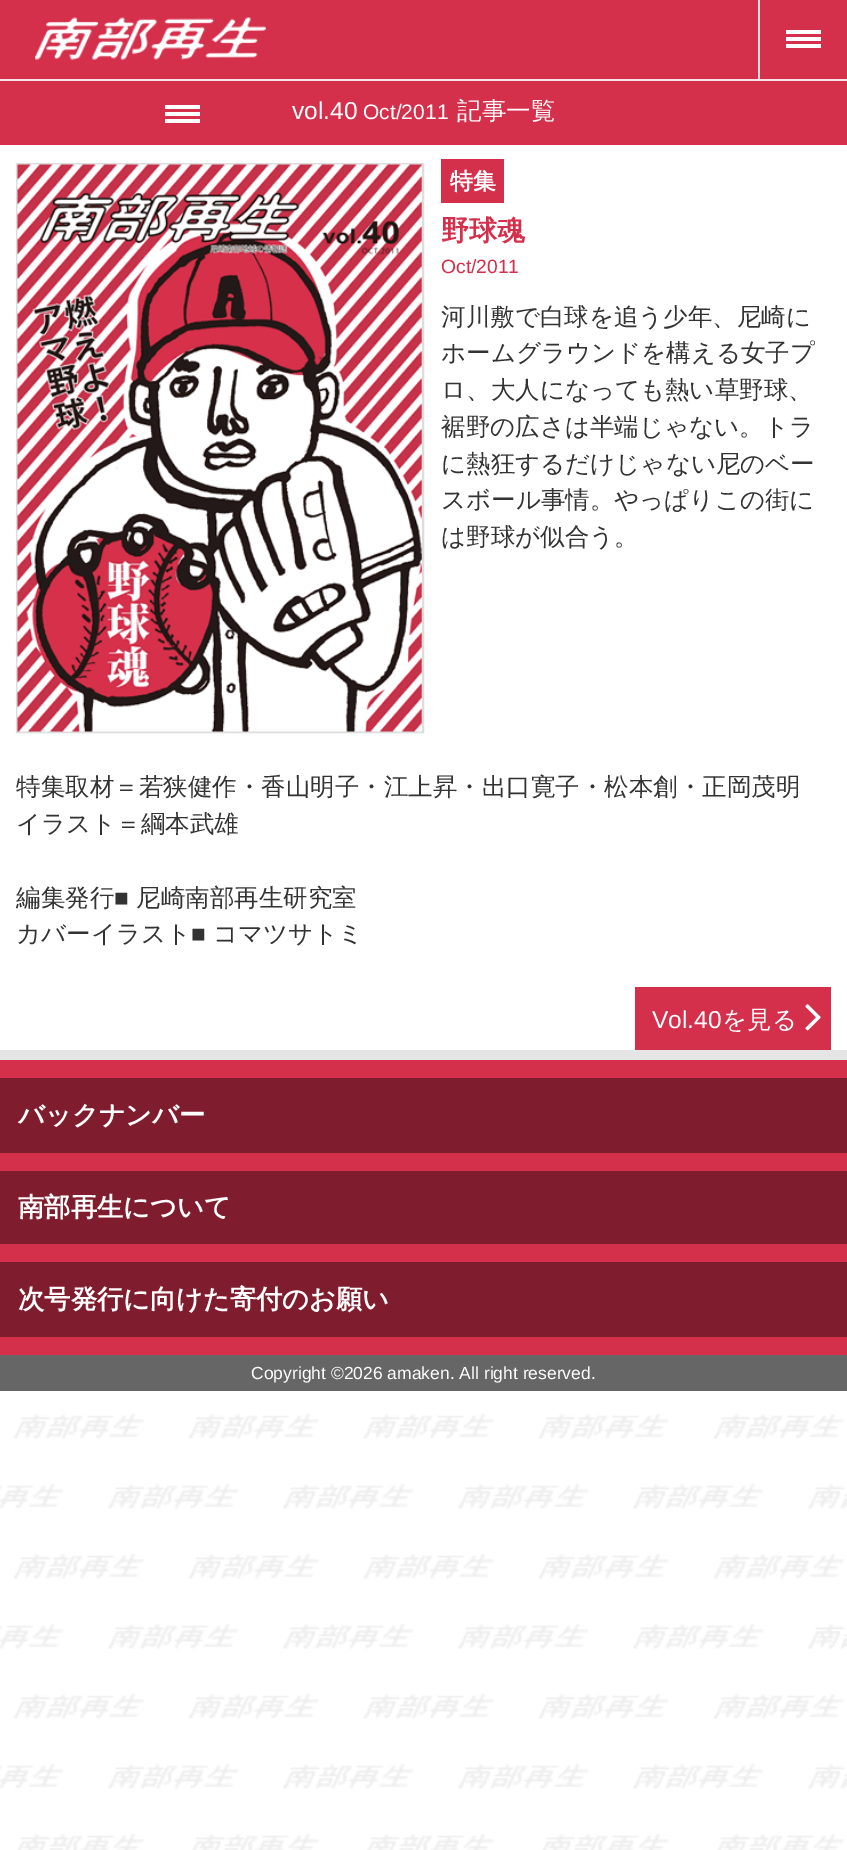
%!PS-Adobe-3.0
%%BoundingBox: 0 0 847 1850
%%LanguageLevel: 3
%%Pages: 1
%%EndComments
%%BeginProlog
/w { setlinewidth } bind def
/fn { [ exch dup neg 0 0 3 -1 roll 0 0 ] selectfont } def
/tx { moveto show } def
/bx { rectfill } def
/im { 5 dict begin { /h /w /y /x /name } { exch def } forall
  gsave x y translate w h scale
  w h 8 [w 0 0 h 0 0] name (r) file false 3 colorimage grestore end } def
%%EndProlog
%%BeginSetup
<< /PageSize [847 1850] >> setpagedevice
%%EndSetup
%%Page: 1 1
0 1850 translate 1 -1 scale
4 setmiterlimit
1 setgray
0 0 847 1850 bx
(image0.raw) 0 1391 847 459 im
0.831 0.184 0.294 setrgbcolor
0 0 847 79 bx
0.976 0.878 0.894 setrgbcolor
0 79 847 2 bx
(image1.raw) 35 17 231 43 im
0.867 setgray
758 0 2 79 bx
1 setgray
786 30 35 4 bx
786 37 35 4 bx
786 44 35 4 bx
0.831 0.184 0.294 setrgbcolor
0 81 847 64 bx
1 setgray
165 105 35 4 bx
165 112 35 4 bx
165 119 35 4 bx
/LiberationSans-Regular 24.5 fn
(vol.40) 292 119 tx
/LiberationSans-Regular 21 fn
(Oct/2011) 363 119 tx
/WenQuanYiZenHei-Medium 24.5 fn
(記事一覧) 457 119 tx
0.867 setgray
2 w
17 164 406 568 rectstroke
(image2.raw) 17 164 405 568 im
0.831 0.184 0.294 setrgbcolor
441 159 63 44 bx
/WenQuanYiZenHei-Bold 23 fn
1 setgray
(特集) 450 189 tx
/WenQuanYiZenHei-Bold 28 fn
0.831 0.184 0.294 setrgbcolor
(野球魂) 441 240 tx
/LiberationSans-Regular 19.25 fn
(Oct/2011) 441 273 tx
/WenQuanYiZenHei-Medium 24.5 fn
0.2 setgray
(河川敷で白球を追う少年、尼崎に) 441 325 tx
(ホームグラウンドを構える女子プ) 441 361 tx
(ロ、大人になっても熱い草野球、) 441 398 tx
(裾野の広さは半端じゃない。トラ) 441 435 tx
(に熱狂するだけじゃない尼のベー) 441 472 tx
(スボール事情。やっぱりこの街に) 441 508 tx
(は野球が似合う。) 441 545 tx
(特集取材＝若狭健作・香山明子・江上昇・出口寛子・松本創・正岡茂明) 16 795 tx
(イラスト＝綱本武雄) 16 832 tx
(編集発行) 16 906 tx
/LiberationSans-Regular 24.5 fn
(■) 114 906 tx
/WenQuanYiZenHei-Medium 24.5 fn
(尼崎南部再生研究室) 136 906 tx
(カバーイラスト) 16 942 tx
/LiberationSans-Regular 24.5 fn
(■) 191 942 tx
/WenQuanYiZenHei-Medium 24.5 fn
(コマツサトミ) 213 942 tx
0.831 0.184 0.294 setrgbcolor
635 987 196 63 bx
/LiberationSans-Regular 24.5 fn
1 setgray
(Vol.40) 652 1028 tx
/WenQuanYiZenHei-Medium 24.5 fn
(を見る) 722 1028 tx
(image3.raw) 805 1004 16 27 im
0.898 setgray
0 1050 847 10 bx
0.831 0.184 0.294 setrgbcolor
0 1060 847 295 bx
0.498 0.11 0.176 setrgbcolor
0 1078 847 75 bx
/WenQuanYiZenHei-Bold 26.25 fn
1 setgray
(バックナンバー) 18 1124 tx
0.498 0.11 0.176 setrgbcolor
0 1171 847 73 bx
1 setgray
(南部再生について) 18 1216 tx
0.498 0.11 0.176 setrgbcolor
0 1262 847 75 bx
1 setgray
(次号発行に向けた寄付のお願い) 18 1308 tx
0.4 setgray
0 1355 847 36 bx
/LiberationSans-Regular 17.5 fn
1 setgray
(Copyright ©2026 amaken. All right reserved.) 251 1379 tx
showpage
%%EOF
